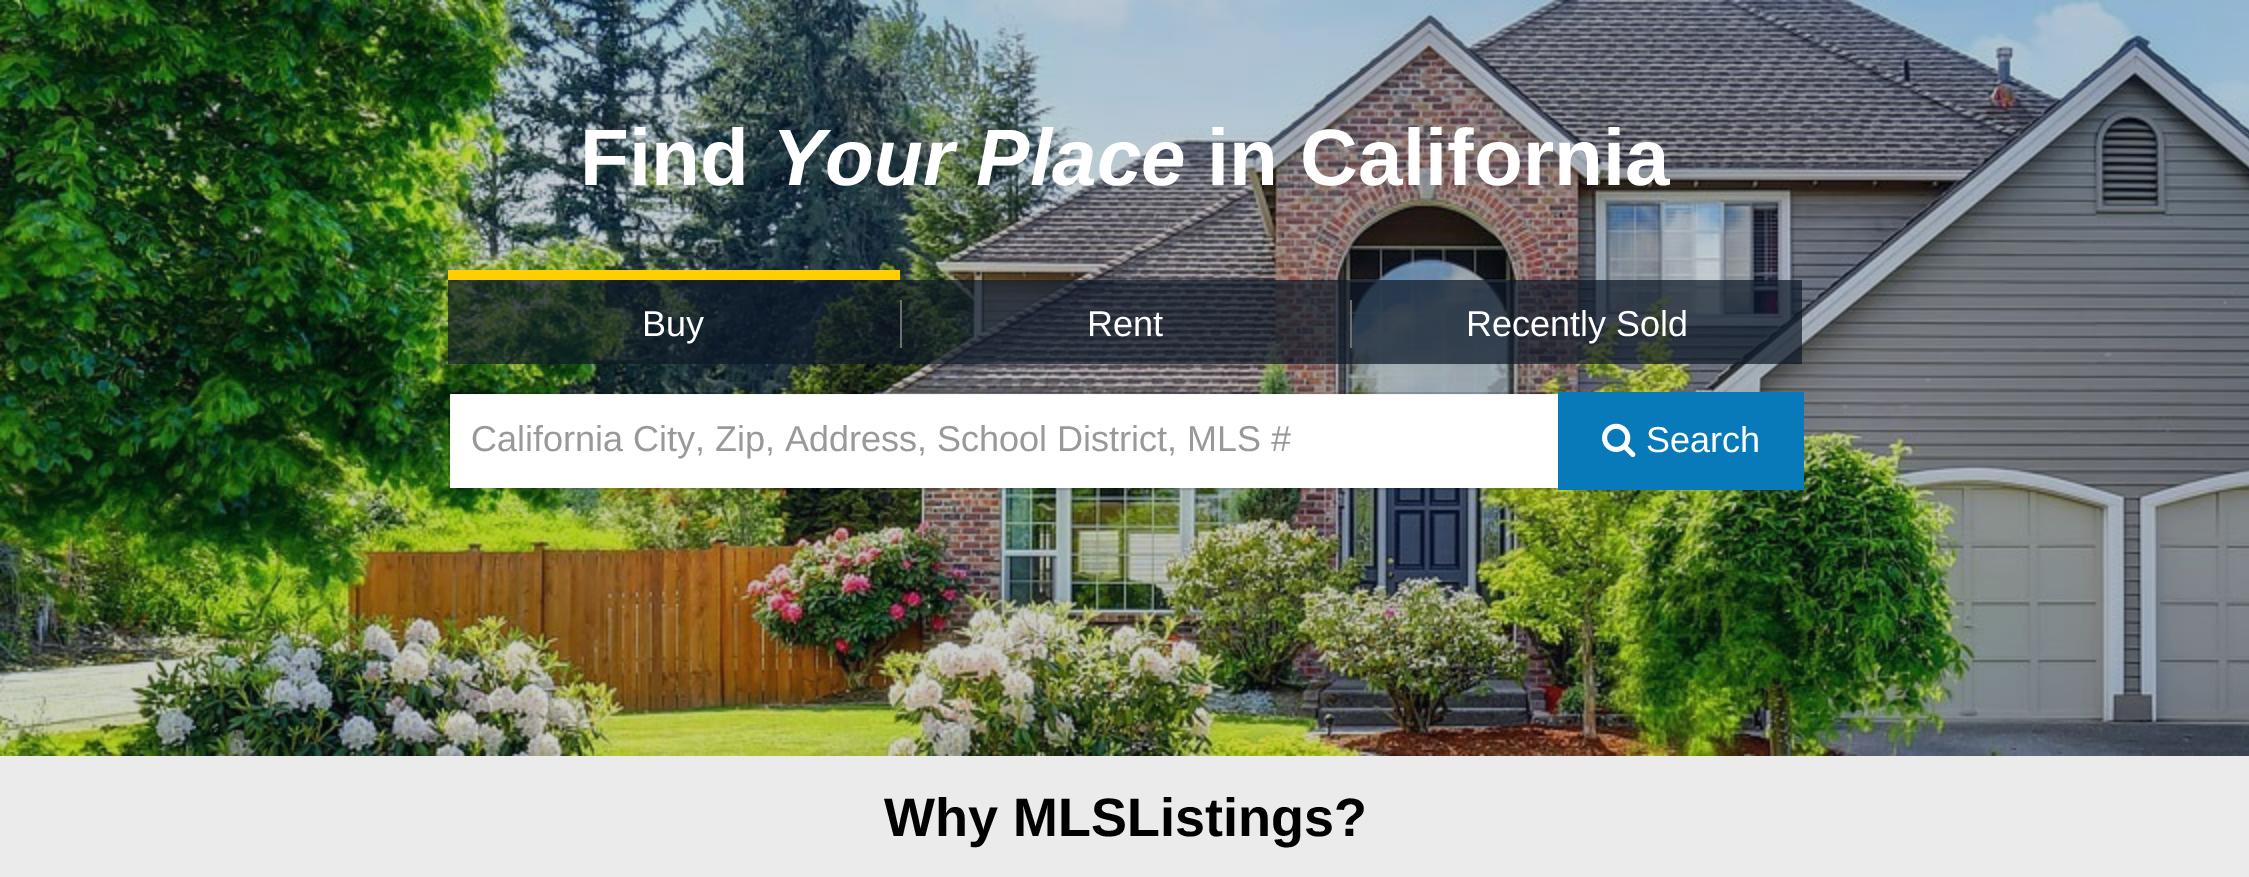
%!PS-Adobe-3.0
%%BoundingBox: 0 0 2249 877
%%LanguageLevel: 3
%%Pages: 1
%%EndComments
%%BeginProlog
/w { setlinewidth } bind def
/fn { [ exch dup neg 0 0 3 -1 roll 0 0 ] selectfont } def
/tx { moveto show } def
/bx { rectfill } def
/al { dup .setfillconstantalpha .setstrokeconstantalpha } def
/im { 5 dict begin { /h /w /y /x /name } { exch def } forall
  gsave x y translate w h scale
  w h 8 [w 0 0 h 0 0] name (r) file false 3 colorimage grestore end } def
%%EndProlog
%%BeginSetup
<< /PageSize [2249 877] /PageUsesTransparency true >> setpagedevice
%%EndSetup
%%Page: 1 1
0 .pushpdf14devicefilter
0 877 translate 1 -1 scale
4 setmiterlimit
1 setgray
0 0 2249 877 bx
(image0.raw) 0 0 2249 756 im
/LiberationSans-Bold 80 fn
(Find) 580 185 tx
/LiberationSans-BoldItalic 80 fn
(Your Place) 772 185 tx
/LiberationSans-Bold 80 fn
(in California) 1207 185 tx
0.7 al
0.047 0.09 0.149 setrgbcolor
448 280 452 84 bx
1 al
1 0.812 0.004 setrgbcolor
448 270 452 10 bx
/LiberationSans-Regular 36 fn
1 setgray
(Buy) 642 336 tx
0.7 al
0.047 0.09 0.149 setrgbcolor
900 280 450 84 bx
1 al
0.439 setgray
900 300 2 48 bx
1 setgray
(Rent) 1087 336 tx
0.7 al
0.047 0.09 0.149 setrgbcolor
1350 280 452 84 bx
1 al
0.439 setgray
1350 300 2 48 bx
1 setgray
(Recently Sold) 1466 336 tx
450 394 1108 94 bx
0.15 al
0 setgray
2 w
449 393 1110 96 rectstroke
1 al
0.6 setgray
(California City, Zip, Address, School District, MLS #) 471 451 tx
0.031 0.478 0.729 setrgbcolor
1558 392 246 98 bx
(image1.raw) 1602 423 34 35 im
1 setgray
(Search) 1646 452 tx
0.922 setgray
0 756 2249 121 bx
/LiberationSans-Bold 54 fn
0 setgray
(Why MLSListings?) 884 836 tx
.poppdf14devicefilter showpage
%%EOF
